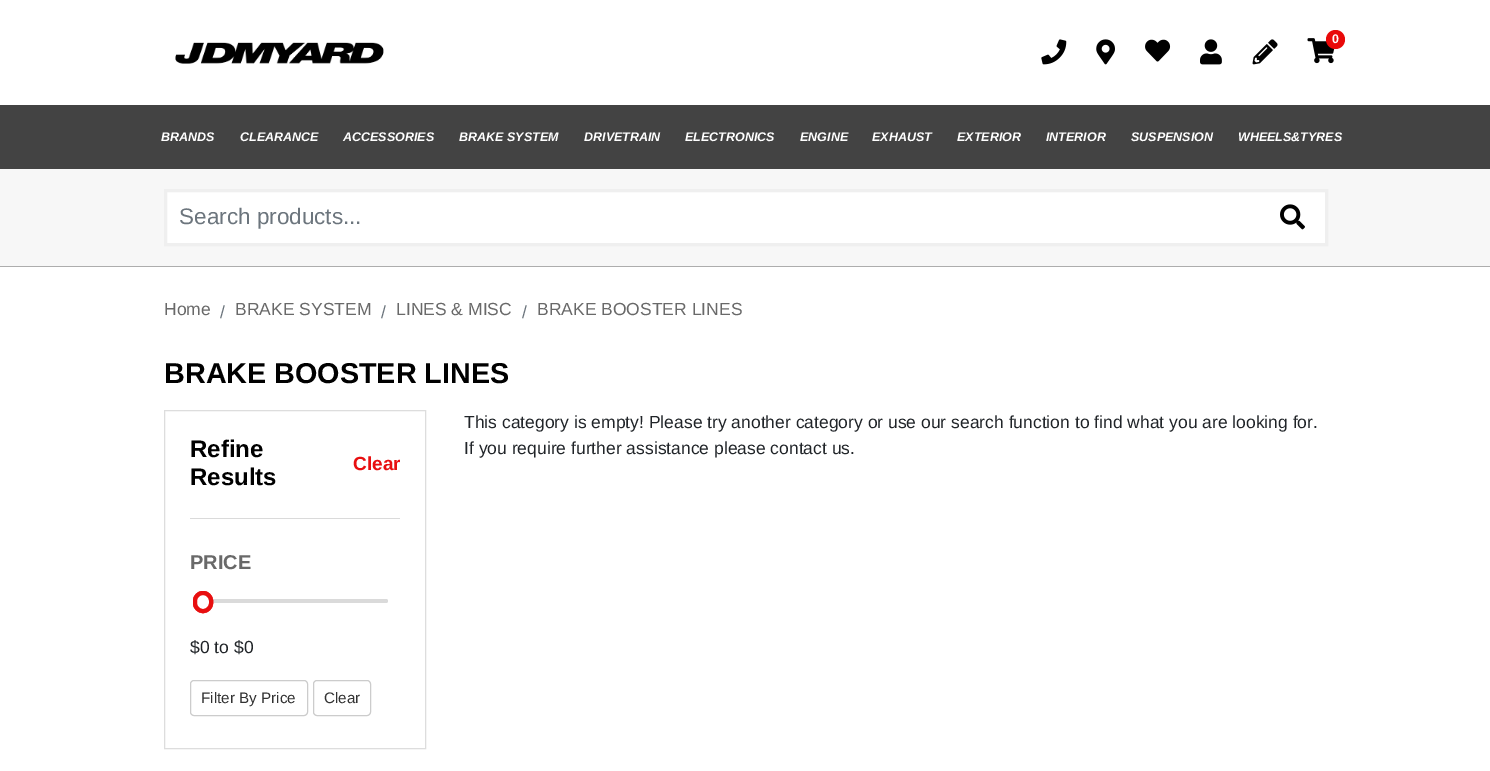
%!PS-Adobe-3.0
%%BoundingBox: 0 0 1490 771
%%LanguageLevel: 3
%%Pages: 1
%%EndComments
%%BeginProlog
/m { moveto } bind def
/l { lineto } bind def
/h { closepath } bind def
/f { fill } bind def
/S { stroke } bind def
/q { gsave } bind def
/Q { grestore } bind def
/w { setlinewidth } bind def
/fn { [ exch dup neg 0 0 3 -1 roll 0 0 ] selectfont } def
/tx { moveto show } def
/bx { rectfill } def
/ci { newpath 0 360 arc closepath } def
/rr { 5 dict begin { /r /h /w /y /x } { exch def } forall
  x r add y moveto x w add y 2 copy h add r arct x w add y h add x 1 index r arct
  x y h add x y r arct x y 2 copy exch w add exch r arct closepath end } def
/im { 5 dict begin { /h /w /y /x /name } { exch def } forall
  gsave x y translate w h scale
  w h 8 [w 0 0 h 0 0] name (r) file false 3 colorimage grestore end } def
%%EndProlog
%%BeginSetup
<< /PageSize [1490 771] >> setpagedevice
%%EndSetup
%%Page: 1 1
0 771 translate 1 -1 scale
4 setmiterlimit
1 setgray
0 0 1490 771 bx
(image0.raw) 1041 39 26 26 im
(image1.raw) 1096 39 19 26 im
(image2.raw) 1145 39 26 23 im
(image3.raw) 1200 39 22 26 im
(image4.raw) 1252 39 26 26 im
(image5.raw) 1307 38 28 26 im
0.914 0.035 0.035 setrgbcolor
1335.5 39.5 9.5 ci f
/Arimo-Bold 12.5 fn
1 setgray
(0) 1332 43 tx
(image6.raw) 175 42 209 22 im
0.263 setgray
0 105 1490 64 bx
/Arimo-BoldItalic 12.5 fn
1 setgray
(BRANDS) 161 141 tx
(CLEARANCE) 240 141 tx
(ACCESSORIES) 343 141 tx
(BRAKE SYSTEM) 459 141 tx
(DRIVETRAIN) 584 141 tx
(ELECTRONICS) 685 141 tx
(ENGINE) 800 141 tx
(EXHAUST) 872 141 tx
(EXTERIOR) 957 141 tx
(INTERIOR) 1046 141 tx
(SUSPENSION) 1131 141 tx
(WHEELS&TYRES) 1238 141 tx
0.969 setgray
0 169 1490 97 bx
1 setgray
165.5 190.5 m 1326.5 190.5 l 1326.5 244.5 l 165.5 244.5 l h q f Q
0.937 setgray
3 w
S
/Arimo-Regular 22.5 fn
0.424 0.459 0.49 setrgbcolor
(Search products...) 179 224 tx
(image7.raw) 1280 204 25 26 im
0.678 setgray
0 266 1490 1 bx
/Arimo-Regular 17.5 fn
0.412 setgray
(Home) 164 315 tx
0.424 0.459 0.49 setrgbcolor
(/) 220 318 tx
0.412 setgray
(BRAKE SYSTEM) 235 315 tx
0.424 0.459 0.49 setrgbcolor
(/) 381 318 tx
0.412 setgray
(LINES & MISC) 396 315 tx
0.424 0.459 0.49 setrgbcolor
(/) 522 318 tx
0.412 setgray
(BRAKE BOOSTER LINES) 537 315 tx
/Arimo-Bold 28.75 fn
0 setgray
(BRAKE BOOSTER LINES) 164 383 tx
0.867 setgray
1 w
164.5 410.5 261 338 rectstroke
/Arimo-Bold 24 fn
0 setgray
(Refine) 190 457 tx
(Results) 190 485 tx
/Arimo-Bold 19 fn
0.91 0.059 0.063 setrgbcolor
(Clear) 353 470 tx
0.855 setgray
190 518 210 1 bx
/Arimo-Bold 20 fn
0.412 setgray
(PRICE) 190 569 tx
0.855 setgray
203 599 185 4 2 rr f
0.91 0.059 0.063 setrgbcolor
4 w
195 593 16 18 8 rr S
1 setgray
195 593 16 18 8 rr q f Q
0.91 0.059 0.063 setrgbcolor
S
/Arimo-Regular 17.5 fn
0.129 0.145 0.161 setrgbcolor
($0 to $0) 190 653 tx
0.8 setgray
1 w
190.5 680.5 117 35 3.5 rr S
/Arimo-Regular 15.25 fn
0.2 setgray
(Filter By Price) 201 703 tx
0.8 setgray
313.5 680.5 57 35 3.5 rr S
0.2 setgray
(Clear) 324 703 tx
/Arimo-Regular 17.5 fn
0.129 0.145 0.161 setrgbcolor
(This category is empty! Please try another category or use our search function to find what you are looking for.) 464 428 tx
(If you require further assistance please contact us.) 464 454 tx
showpage
%%EOF
